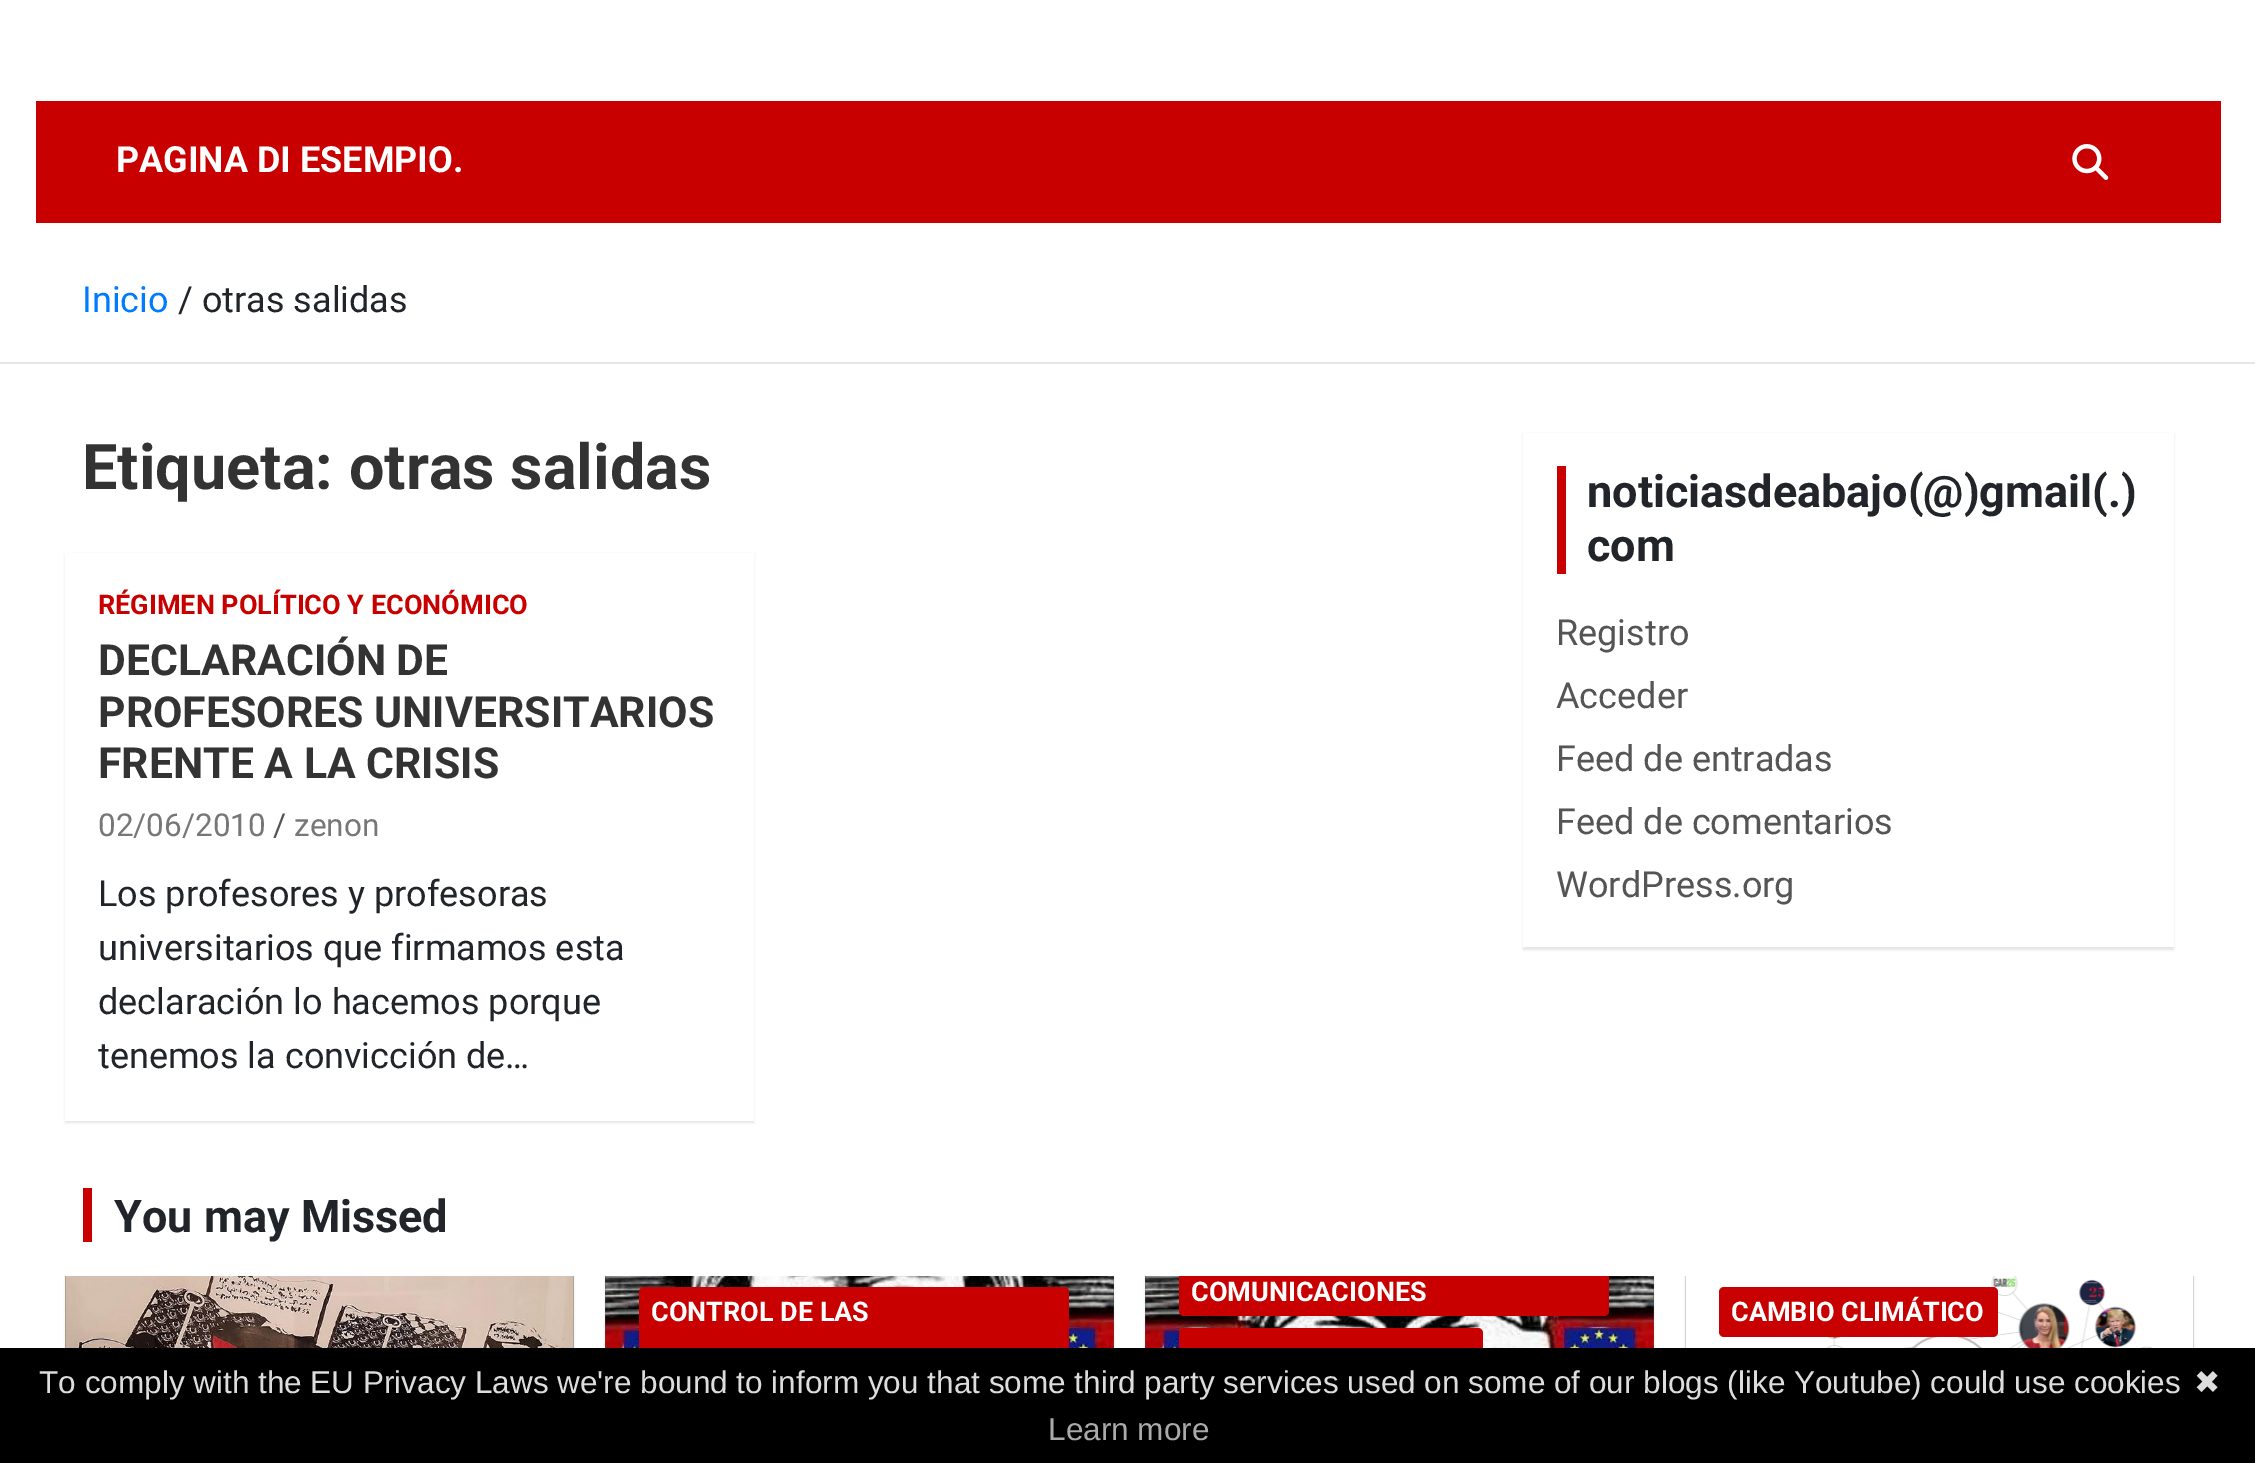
%!PS-Adobe-3.0
%%BoundingBox: 0 0 2255 1463
%%LanguageLevel: 3
%%Pages: 1
%%EndComments
%%BeginProlog
/m { moveto } bind def
/l { lineto } bind def
/c { curveto } bind def
/h { closepath } bind def
/f { fill } bind def
/fn { [ exch dup neg 0 0 3 -1 roll 0 0 ] selectfont } def
/tx { moveto show } def
/bx { rectfill } def
/al { dup .setfillconstantalpha .setstrokeconstantalpha } def
/rr { 5 dict begin { /r /h /w /y /x } { exch def } forall
  x r add y moveto x w add y 2 copy h add r arct x w add y h add x 1 index r arct
  x y h add x y r arct x y 2 copy exch w add exch r arct closepath end } def
/sh { 12 dict begin { /a /b /q /h /w /y /x } { exch def } forall gsave /was 0 def
  9 -2 -9 { dup b mul 4 div /e exch def 1 sub .425 mul 2.718 exch exp 1 add a .99 .min exch div /now exch def
    1 1 now sub 1 was sub div sub al /was now def
    w h .min e 2 mul add 0 gt { x e sub y e sub w e 2 mul add h e 2 mul add
      q e add b .6 mul add w h .min 2 div e add .min 0 .max rr fill } if } for grestore end } def
/im { 5 dict begin { /h /w /y /x /name } { exch def } forall
  gsave x y translate w h scale
  w h 8 [w 0 0 h 0 0] name (r) file false 3 colorimage grestore end } def
%%EndProlog
%%BeginSetup
<< /PageSize [2255 1463] /PageUsesTransparency true >> setpagedevice
%%EndSetup
%%Page: 1 1
0 .pushpdf14devicefilter
0 1463 translate 1 -1 scale
4 setmiterlimit
1 setgray
0 0 2255 1463 bx
0.784 0 0 setrgbcolor
36 101 2185 122 bx
/Roboto-Bold 36 fn
1 setgray
(PAGINA DI ESEMPIO.) 116 172 tx
(image0.raw) 2072 144 37 36 im
0.902 setgray
0 362 2255 2 bx
/Roboto-Regular 36 fn
0 0.482 1 setrgbcolor
(Inicio) 82 312 tx
0.129 0.145 0.161 setrgbcolor
(/ otras salidas) 178 312 tx
/Roboto-Bold 63 fn
0.2 setgray
(Etiqueta: otras salidas) 82 489 tx
0 setgray
65 554 689 569 0 1 0.1 sh
1 setgray
65 553 689 568 bx
/Roboto-Bold 27 fn
0.784 0 0 setrgbcolor
(RÉGIMEN POLÍTICO Y ECONÓMICO) 98 614 tx
/Roboto-Bold 42.75 fn
0.2 setgray
(DECLARACIÓN DE) 98 675 tx
(PROFESORES UNIVERSITARIOS) 98 727 tx
(FRENTE A LA CRISIS) 98 778 tx
/Roboto-Regular 31.5 fn
0.467 setgray
(02/06/2010) 98 836 tx
0.333 setgray
(/) 273 836 tx
0.467 setgray
(zenon) 294 836 tx
/Roboto-Regular 36 fn
0.129 0.145 0.161 setrgbcolor
(Los profesores y profesoras) 98 906 tx
(universitarios que firmamos esta) 98 960 tx
(declaración lo hacemos porque) 98 1014 tx
(tenemos la convicción de…) 98 1068 tx
0 setgray
1523 434 651 516 0 1 0.1 sh
1 setgray
1523 433 651 514 bx
0.784 0 0 setrgbcolor
1557 466 9 108 bx
/Roboto-Bold 45 fn
0.129 0.145 0.161 setrgbcolor
(noticiasdeabajo\(@\)gmail\(.\)) 1587 507 tx
(com) 1587 561 tx
/Roboto-Regular 36 fn
0.333 setgray
(Registro) 1556 645 tx
(Acceder) 1556 708 tx
(Feed de entradas) 1556 771 tx
(Feed de comentarios) 1556 834 tx
(WordPress.org) 1556 897 tx
0.784 0 0 setrgbcolor
83 1188 9 54 bx
/Roboto-Bold 45 fn
0.129 0.145 0.161 setrgbcolor
(You may Missed) 114 1232 tx
0 setgray
65 1278 509 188 0 1 0.1 sh
(image1.raw) 65 1276 509 72 im
1145 1278 509 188 0 1 0.1 sh
(image2.raw) 1145 1276 509 72 im
0.784 0 0 setrgbcolor
1179 1276 m 1609 1276 l 1609 1311 l 1609 1314 1607 1316 1604 1316 c 1184 1316 l 1181 1316 1179 1314 1179 1311 c h f
/Roboto-Bold 27 fn
1 setgray
(COMUNICACIONES) 1191 1301 tx
0.784 0 0 setrgbcolor
1179 1328 304 49 5 rr f
0 setgray
605 1278 509 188 0 1 0.1 sh
(image2.raw) 605 1276 509 72 im
0.784 0 0 setrgbcolor
639 1287 430 90 5 rr f
1 setgray
(CONTROL DE LAS) 651 1321 tx
0 setgray
1685 1278 509 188 0 1 0.1 sh
(image3.raw) 1685 1276 509 72 im
0.784 0 0 setrgbcolor
1719 1287 279 50 5 rr f
1 setgray
(CAMBIO CLIMÁTICO) 1731 1321 tx
0 setgray
0 1348 2255 115 bx
/LiberationSans-Regular 31.5 fn
0.867 setgray
(To comply with the EU Privacy Laws we're bound to inform you that some third party services used on some of our blogs \(like Youtube\) could use cookies) 39 1393 tx
/DejaVuSans-Regular 31.5 fn
(✖) 2194 1393 tx
/LiberationSans-Regular 31.5 fn
0.667 setgray
(Learn more) 1048 1440 tx
.poppdf14devicefilter showpage
%%EOF
